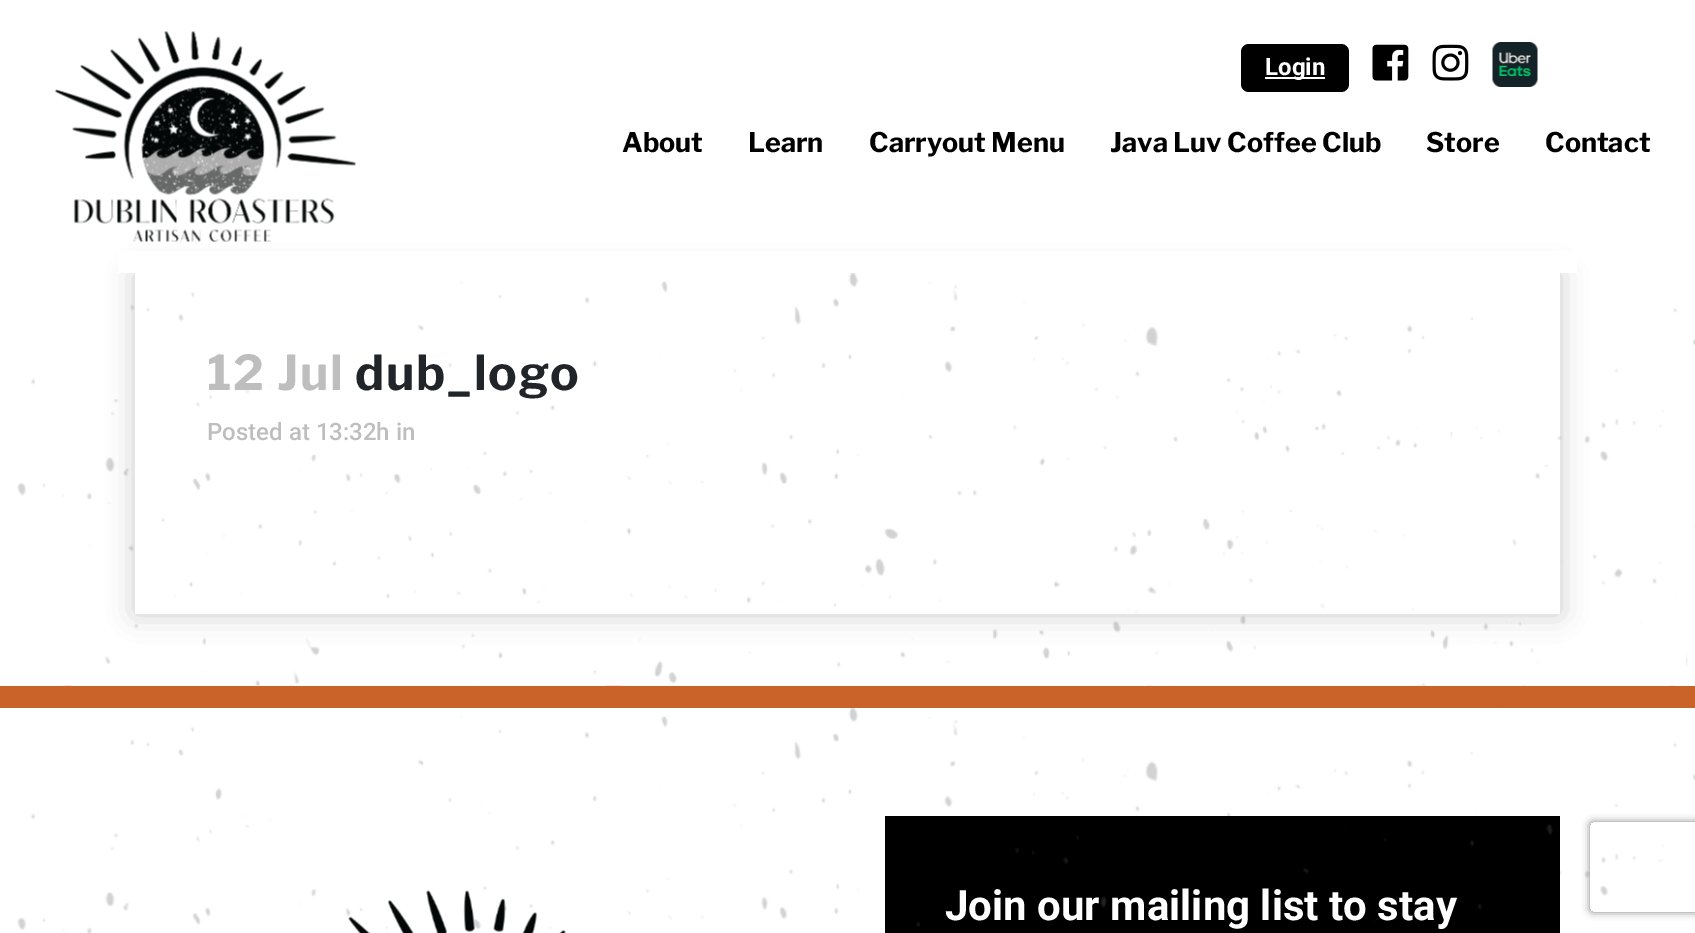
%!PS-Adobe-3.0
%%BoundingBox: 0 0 1695 933
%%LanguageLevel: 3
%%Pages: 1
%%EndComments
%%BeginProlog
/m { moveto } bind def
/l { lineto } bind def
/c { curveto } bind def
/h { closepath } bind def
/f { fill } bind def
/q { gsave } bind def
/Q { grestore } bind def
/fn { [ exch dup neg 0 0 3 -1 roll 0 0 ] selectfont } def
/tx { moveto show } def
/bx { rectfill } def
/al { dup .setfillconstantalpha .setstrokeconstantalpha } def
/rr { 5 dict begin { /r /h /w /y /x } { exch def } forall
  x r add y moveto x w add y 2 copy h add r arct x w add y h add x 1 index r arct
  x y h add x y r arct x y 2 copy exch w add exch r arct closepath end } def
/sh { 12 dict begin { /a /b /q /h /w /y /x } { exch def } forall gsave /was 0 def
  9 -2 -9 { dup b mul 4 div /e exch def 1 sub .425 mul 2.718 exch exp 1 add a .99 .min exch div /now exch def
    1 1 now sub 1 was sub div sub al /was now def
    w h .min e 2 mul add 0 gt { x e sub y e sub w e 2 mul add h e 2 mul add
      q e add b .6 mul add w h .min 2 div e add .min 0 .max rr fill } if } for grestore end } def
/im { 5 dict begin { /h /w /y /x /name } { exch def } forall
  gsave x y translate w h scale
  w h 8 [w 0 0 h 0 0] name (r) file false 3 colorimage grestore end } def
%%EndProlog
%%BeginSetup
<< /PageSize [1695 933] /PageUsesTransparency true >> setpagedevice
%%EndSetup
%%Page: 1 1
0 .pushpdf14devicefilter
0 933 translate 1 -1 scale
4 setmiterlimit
1 setgray
0 0 1695 933 bx
(image4.raw) 17 273 1678 413 im
q
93 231 m 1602 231 l 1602 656 l 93 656 l h 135 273 m 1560 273 l 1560 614 l 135 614 l h eoclip newpath
0 setgray
135 273 1425 341 0 13.5 0.2 sh
Q
118 251 1459 22 bx
0 setgray
1241 44 108 48 8 rr f
1 setgray
1265 77 60 2 bx
/Roboto-Bold 24 fn
(Login) 1265 75 tx
(image0.raw) 1372 44 37 37 im
(image1.raw) 1432 44 37 37 im
(image2.raw) 1492 42 46 45 im
(image3.raw) 55 31 301 211 im
/LibreFranklin-Bold 27 fn
0 setgray
(About) 622 152 tx
(Learn) 748 152 tx
(Carryout Menu) 869 152 tx
(Java Luv Coffee Club) 1110 152 tx
(Store) 1426 152 tx
(Contact) 1545 152 tx
/LibreFranklin-Bold 48 fn
0.745 setgray
207 390 m 1.5 0 (12 Jul) ashow
0.129 0.145 0.161 setrgbcolor
355 390 m 1.5 0 (dub_logo) ashow
/Roboto-Medium 24 fn
0.745 setgray
(Posted at 13:32h in) 207 440 tx
(image5.raw) 17 685 1678 248 im
0.792 0.388 0.165 setrgbcolor
0 686 1695 22 bx
(image6.raw) 348 890 218 43 im
0 setgray
885 816 675 117 bx
(image7.raw) 916 824 637 103 im
/Roboto-Bold 42 fn
1 setgray
(Join our mailing list to stay) 945 920 tx
q
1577 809 m 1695 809 l 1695 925 l 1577 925 l h 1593 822 m 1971 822 l 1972.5 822 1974 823.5 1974 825 c 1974 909 l 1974 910.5 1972.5 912 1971 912 c 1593 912 l 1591.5 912 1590 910.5 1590 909 c 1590 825 l 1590 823.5 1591.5 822 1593 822 c h eoclip newpath
0.502 setgray
1590 822 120 90 3 4 1 sh
Q
.poppdf14devicefilter showpage
%%EOF
